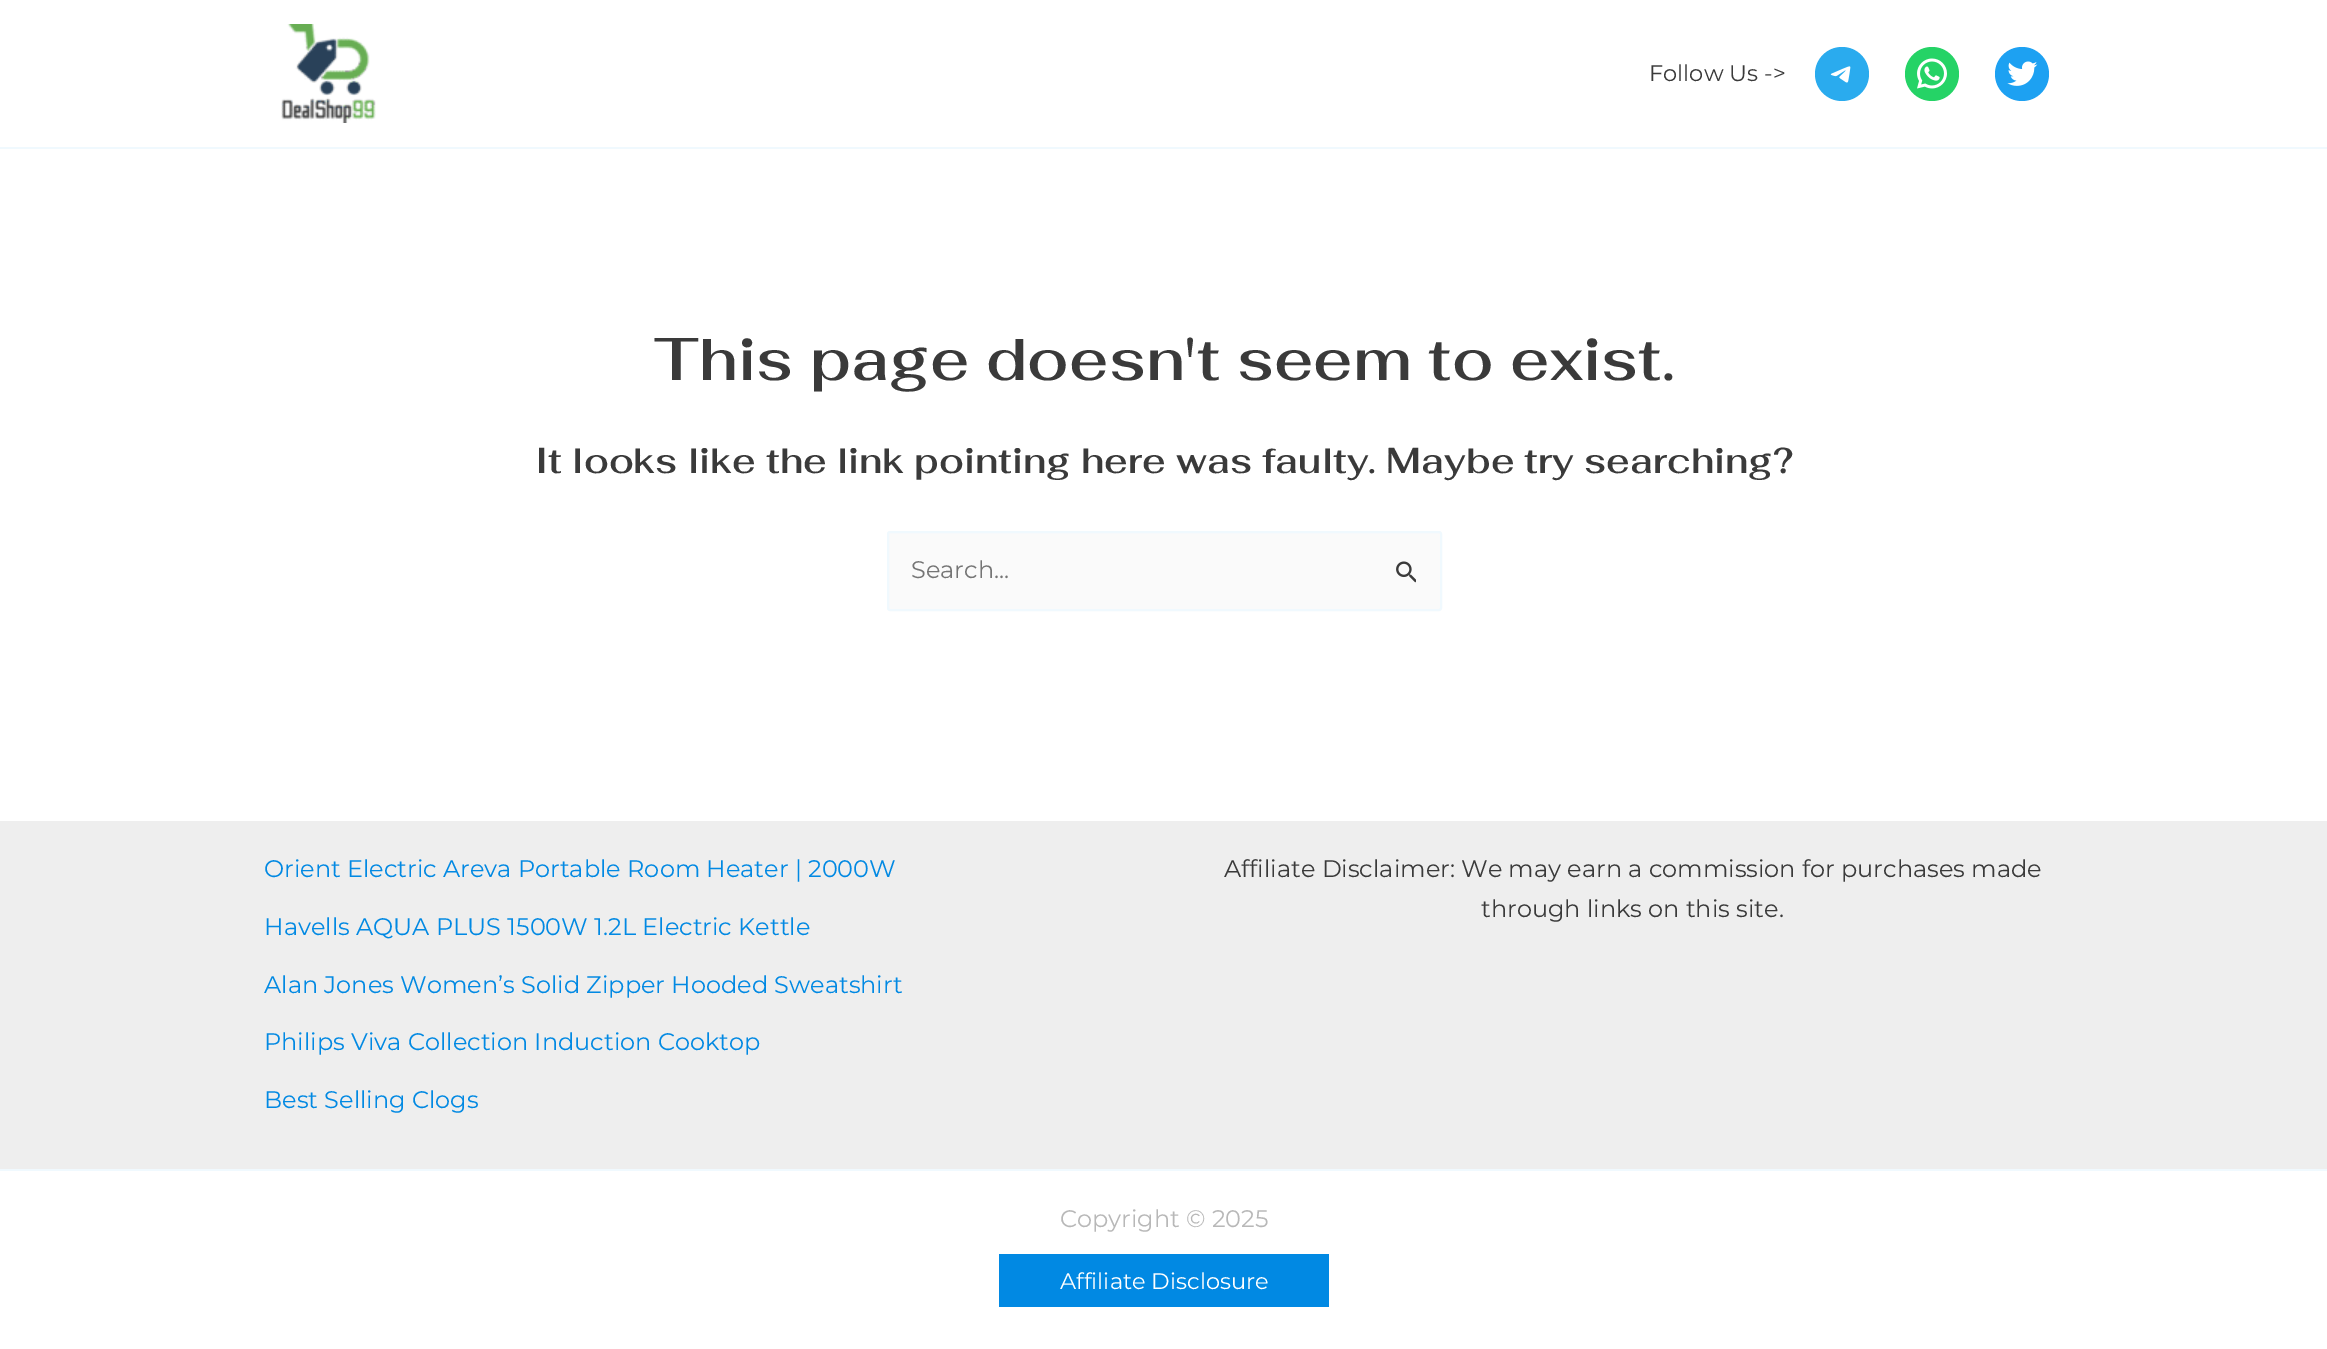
%!PS-Adobe-3.0
%%BoundingBox: 0 0 2327 1349
%%LanguageLevel: 3
%%Pages: 1
%%EndComments
%%BeginProlog
/f { fill } bind def
/S { stroke } bind def
/q { gsave } bind def
/Q { grestore } bind def
/w { setlinewidth } bind def
/fn { [ exch dup neg 0 0 3 -1 roll 0 0 ] selectfont } def
/tx { moveto show } def
/bx { rectfill } def
/ci { newpath 0 360 arc closepath } def
/rr { 5 dict begin { /r /h /w /y /x } { exch def } forall
  x r add y moveto x w add y 2 copy h add r arct x w add y h add x 1 index r arct
  x y h add x y r arct x y 2 copy exch w add exch r arct closepath end } def
/im { 5 dict begin { /h /w /y /x /name } { exch def } forall
  gsave x y translate w h scale
  w h 8 [w 0 0 h 0 0] name (r) file false 3 colorimage grestore end } def
%%EndProlog
%%BeginSetup
<< /PageSize [2327 1349] >> setpagedevice
%%EndSetup
%%Page: 1 1
0 1349 translate 1 -1 scale
4 setmiterlimit
1 setgray
0 0 2327 1349 bx
0.941 0.976 0.996 setrgbcolor
0 147 2327 2 bx
(image0.raw) 281 24 95 99 im
/Montserrat-Regular 22.5 fn
0.227 setgray
(Follow Us ->) 1649 81 tx
0.165 0.671 0.933 setrgbcolor
1842 74 27 ci f
(image1.raw) 1830 66 21 17 im
0.145 0.827 0.4 setrgbcolor
1932 74 27 ci f
(image2.raw) 1917 58 30 31 im
0.114 0.631 0.949 setrgbcolor
2022 74 27 ci f
(image3.raw) 2007 61 31 25 im
/Fahkwang-SemiBold 60 fn
0.227 setgray
(This page doesn't seem to exist.) 654 380 tx
/Fahkwang-SemiBold 36 fn
(It looks like the link pointing here was faulty. Maybe try searching?) 535 473 tx
0.98 setgray
888 532 553 78 2 rr q f Q
0.941 0.976 0.996 setrgbcolor
2 w
S
/Montserrat-Regular 24 fn
0.459 setgray
(Search...) 911 578 tx
(image4.raw) 1396 561 20 22 im
0.933 setgray
0 821 2327 348 bx
0.004 0.537 0.89 setrgbcolor
(Orient Electric Areva Portable Room Heater | 2000W) 264 877 tx
(Havells AQUA PLUS 1500W 1.2L Electric Kettle) 264 935 tx
(Alan Jones Women’s Solid Zipper Hooded Sweatshirt) 264 993 tx
(Philips Viva Collection Induction Cooktop) 264 1050 tx
(Best Selling Clogs) 264 1108 tx
0.227 setgray
(Affiliate Disclaimer: We may earn a commission for purchases made) 1224 877 tx
(through links on this site.) 1481 917 tx
0.941 0.976 0.996 setrgbcolor
0 1169 2327 2 bx
0.722 setgray
(Copyright © 2025) 1060 1227 tx
0.004 0.537 0.89 setrgbcolor
999 1254 330 53 bx
/Montserrat-Regular 22.5 fn
1 setgray
(Affiliate Disclosure) 1060 1289 tx
showpage
%%EOF
